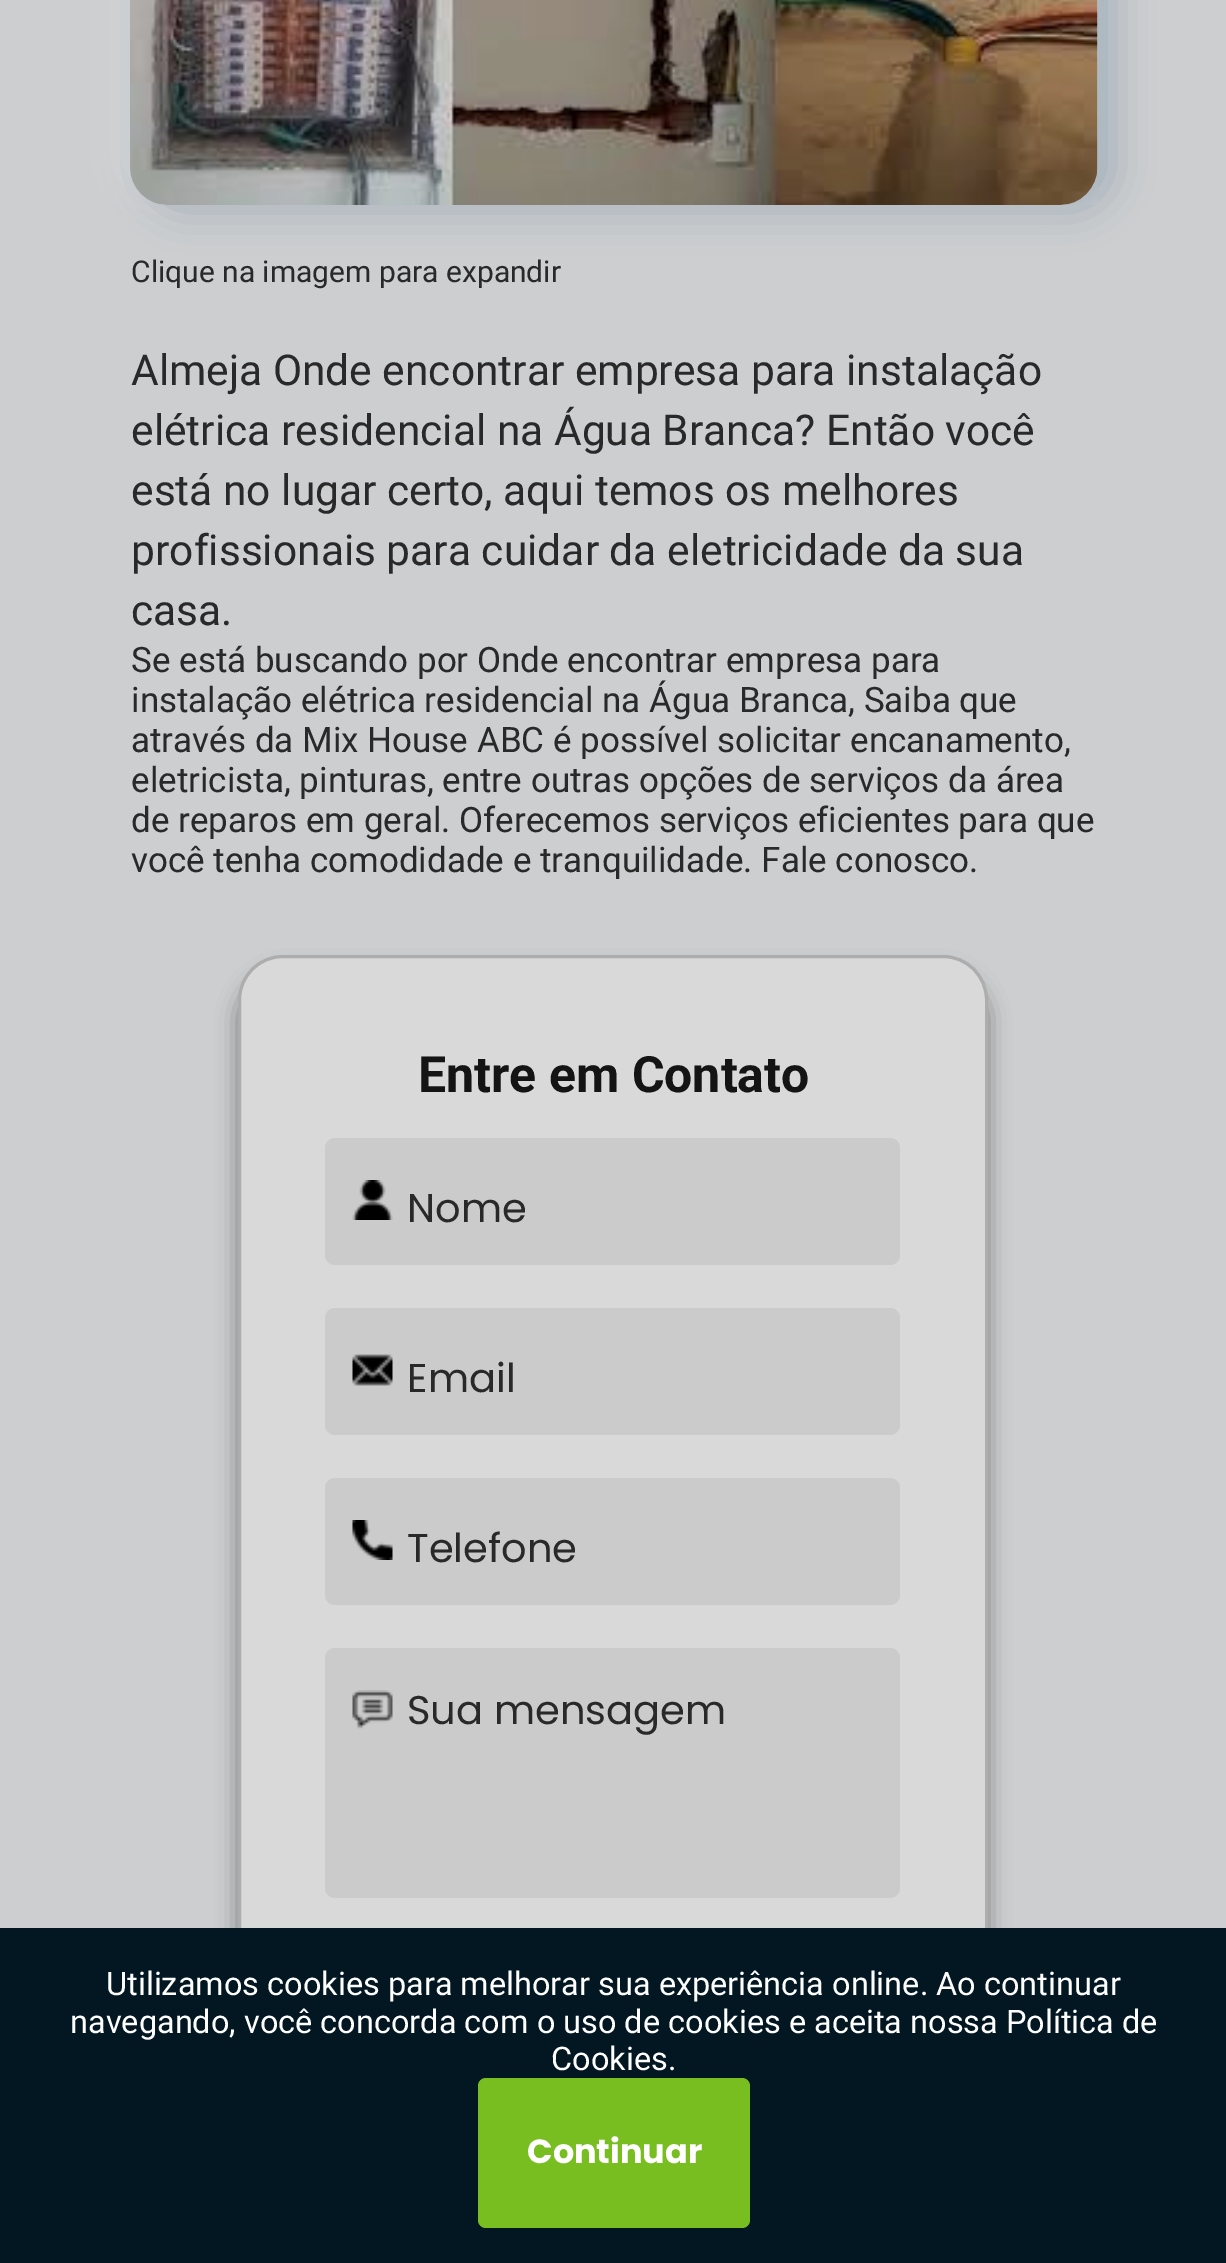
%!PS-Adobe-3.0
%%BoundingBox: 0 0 1226 2263
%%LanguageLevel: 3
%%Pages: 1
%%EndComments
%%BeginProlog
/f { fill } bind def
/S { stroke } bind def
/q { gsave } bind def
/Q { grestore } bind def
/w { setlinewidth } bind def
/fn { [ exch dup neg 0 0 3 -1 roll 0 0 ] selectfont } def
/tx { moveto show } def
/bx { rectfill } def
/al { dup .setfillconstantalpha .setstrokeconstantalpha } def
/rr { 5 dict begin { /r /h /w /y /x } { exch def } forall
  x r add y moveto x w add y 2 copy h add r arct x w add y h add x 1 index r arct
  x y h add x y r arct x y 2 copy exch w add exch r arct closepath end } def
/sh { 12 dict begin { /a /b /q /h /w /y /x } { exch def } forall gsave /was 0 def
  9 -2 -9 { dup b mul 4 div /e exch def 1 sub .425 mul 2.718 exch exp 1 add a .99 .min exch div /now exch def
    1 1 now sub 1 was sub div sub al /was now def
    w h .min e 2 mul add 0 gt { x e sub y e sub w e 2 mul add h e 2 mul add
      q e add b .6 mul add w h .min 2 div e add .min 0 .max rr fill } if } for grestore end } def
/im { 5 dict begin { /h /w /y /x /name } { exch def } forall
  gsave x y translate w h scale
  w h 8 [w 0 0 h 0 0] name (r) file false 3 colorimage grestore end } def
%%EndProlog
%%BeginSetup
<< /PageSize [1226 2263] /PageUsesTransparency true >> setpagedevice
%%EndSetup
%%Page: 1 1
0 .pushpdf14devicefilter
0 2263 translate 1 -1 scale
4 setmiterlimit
0.8 0.808 0.816 setrgbcolor
0 0 1226 2263 bx
0.851 setgray
115 -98 968 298 38 20 0.8 sh
0.455 0.549 0.635 setrgbcolor
145 -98 968 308 38 20 0.48 sh
(image0.raw) 130 0 968 205 im
/Roboto-Regular 30 fn
0.161 setgray
(Clique na imagem para expandir) 131 282 tx
/Roboto-Regular 42.5 fn
(Almeja Onde encontrar empresa para instalação) 131 385 tx
(elétrica residencial na Água Branca? Então você) 131 445 tx
(está no lugar certo, aqui temos os melhores) 131 505 tx
(profissionais para cuidar da eletricidade da sua) 131 565 tx
(casa.) 131 625 tx
/Roboto-Regular 35 fn
(Se está buscando por Onde encontrar empresa para) 131 672 tx
(instalação elétrica residencial na Água Branca, Saiba que) 131 712 tx
(através da Mix House ABC é possível solicitar encanamento,) 131 752 tx
(eletricista, pinturas, entre outras opções de serviços da área) 131 792 tx
(de reparos em geral. Oferecemos serviços eficientes para que) 131 832 tx
(você tenha comodidade e tranquilidade. Fale conosco.) 131 872 tx
0 setgray
238 973 750 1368 45 11 0.4 sh
0.851 setgray
239.5 956.5 747 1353 43.5 rr q f Q
0.678 setgray
3 w
S
/Roboto-Bold 50 fn
0.078 setgray
(Entre em Contato) 418 1092 tx
0.796 setgray
325 1138 575 127 10 rr f
(image1.raw) 352 1180 41 40 im
/Poppins-Regular 40 fn
0.161 setgray
(Nome) 407 1222 tx
0.796 setgray
325 1308 575 127 10 rr f
(image2.raw) 352 1354 41 32 im
0.161 setgray
(Email) 407 1392 tx
0.796 setgray
325 1478 575 127 10 rr f
(image3.raw) 352 1520 41 40 im
0.161 setgray
(Telefone) 407 1562 tx
0.796 setgray
325 1648 575 250 10 rr f
(image4.raw) 352 1690 41 39 im
0.161 setgray
(Sua mensagem) 407 1724 tx
0.008 0.09 0.133 setrgbcolor
0 1928 1226 335 bx
/Roboto-Regular 32.5 fn
1 setgray
(Utilizamos cookies para melhorar sua experiência online. Ao continuar) 106 1995 tx
(navegando, você concorda com o uso de cookies e aceita nossa Política de) 70 2033 tx
(Cookies.) 551 2070 tx
0.471 0.745 0.125 setrgbcolor
478 2078 272 150 8 rr f
/Poppins-Bold 33.5 fn
1 setgray
(Continuar) 527 2163 tx
.poppdf14devicefilter showpage
%%EOF
